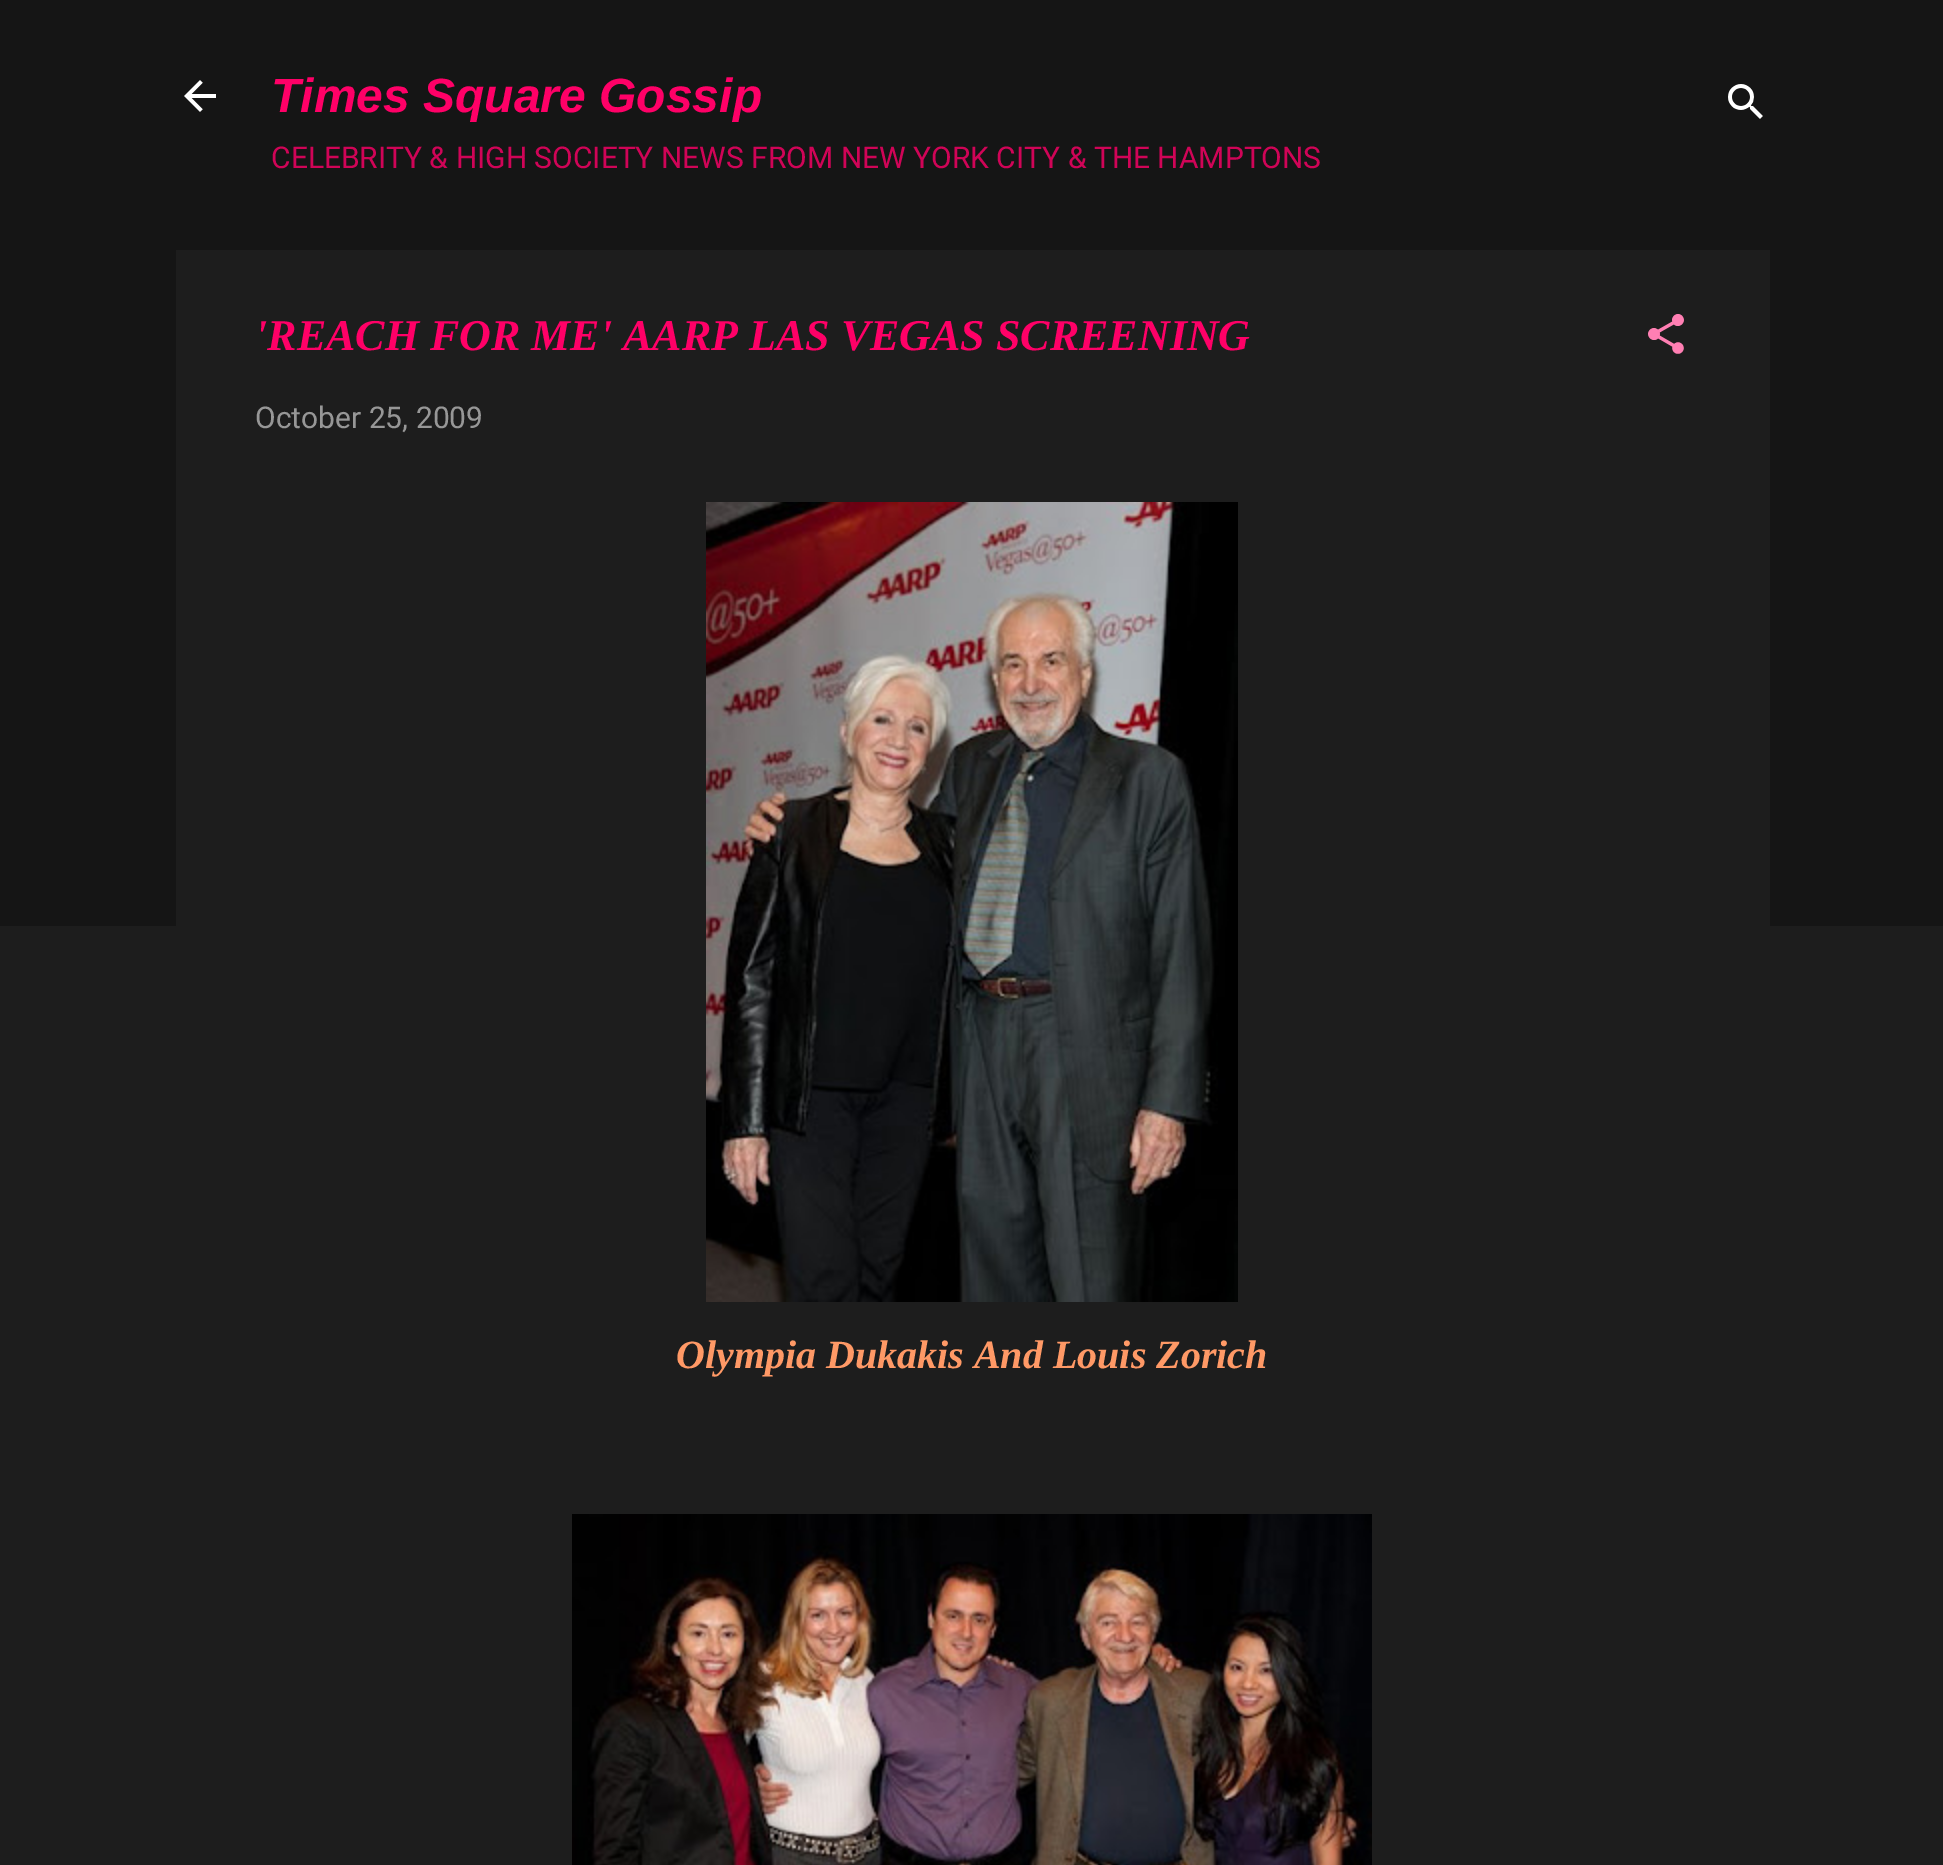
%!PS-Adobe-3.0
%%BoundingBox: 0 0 1943 1865
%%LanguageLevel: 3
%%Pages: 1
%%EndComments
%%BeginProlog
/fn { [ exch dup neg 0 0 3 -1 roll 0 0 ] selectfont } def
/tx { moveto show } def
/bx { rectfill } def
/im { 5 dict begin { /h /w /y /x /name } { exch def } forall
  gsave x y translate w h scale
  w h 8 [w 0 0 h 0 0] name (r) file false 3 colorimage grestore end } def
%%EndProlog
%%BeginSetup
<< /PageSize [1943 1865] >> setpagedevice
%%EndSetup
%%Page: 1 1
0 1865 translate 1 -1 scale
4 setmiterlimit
0.114 setgray
0 0 1943 1865 bx
0.082 setgray
0 0 1943 926 bx
(image0.raw) 184 80 32 32 im
/LiberationSans-BoldItalic 48 fn
1 0 0.404 setrgbcolor
(Times Square Gossip) 271 112 tx
/Roboto-Regular 30 fn
0.816 0.016 0.341 setrgbcolor
(CELEBRITY & HIGH SOCIETY NEWS FROM NEW YORK CITY & THE HAMPTONS) 271 168 tx
(image1.raw) 1728 84 35 35 im
0.114 setgray
176 250 1594 676 bx
/LiberationSerif-BoldItalic 44 fn
1 0 0.404 setrgbcolor
('REACH FOR ME' AARP LAS VEGAS SCREENING) 255 350 tx
(image2.raw) 1648 314 36 40 im
/Roboto-Regular 30 fn
0.592 setgray
(October 25, 2009) 255 428 tx
(image3.raw) 706 502 532 800 im
/LiberationSerif-BoldItalic 40 fn
1 0.6 0.4 setrgbcolor
(Olympia Dukakis And Louis Zorich) 676 1368 tx
(image4.raw) 572 1514 800 351 im
showpage
%%EOF
